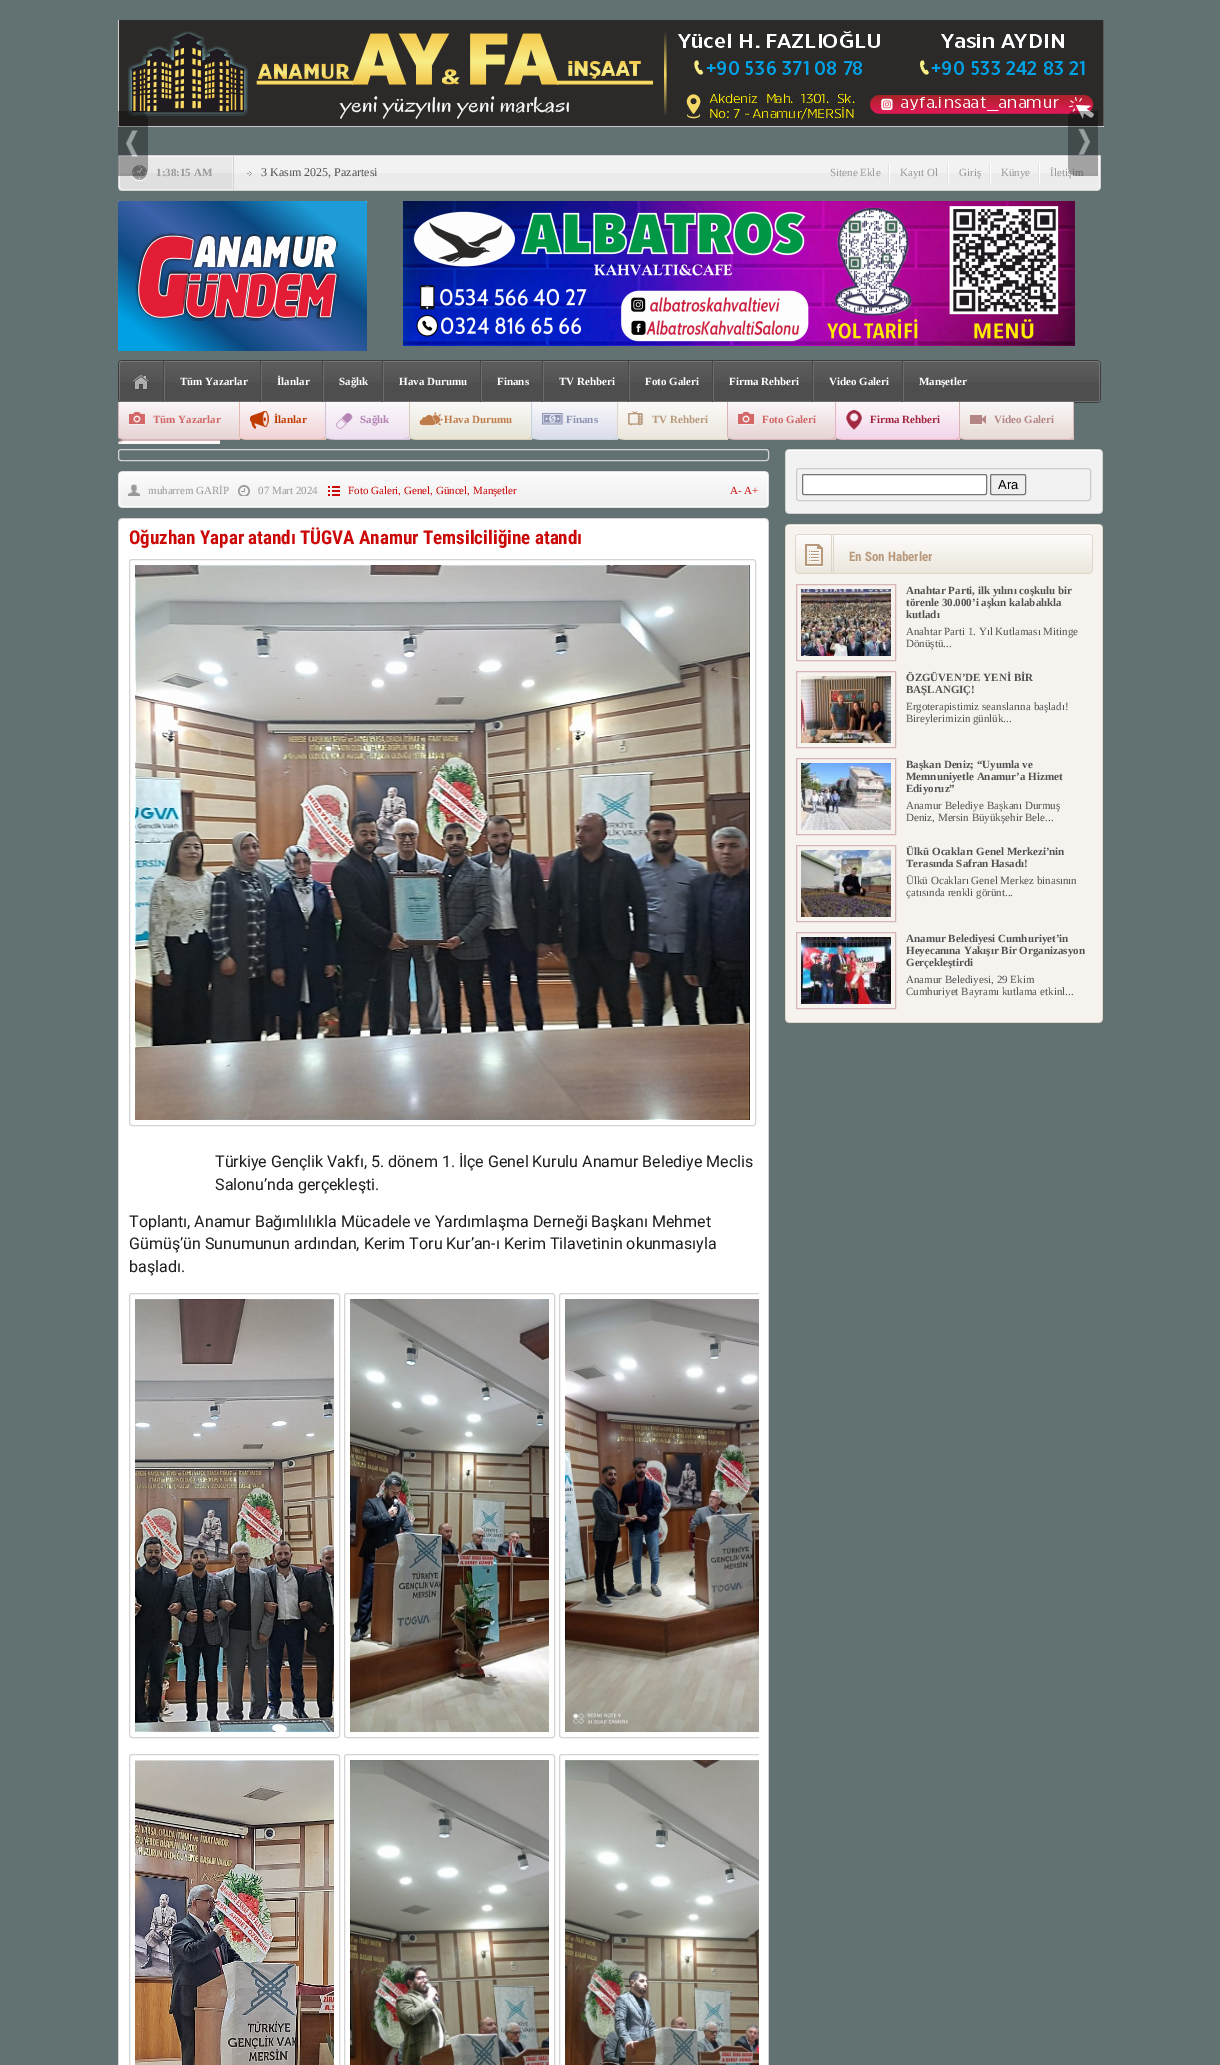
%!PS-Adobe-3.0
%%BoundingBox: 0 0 1220 2065
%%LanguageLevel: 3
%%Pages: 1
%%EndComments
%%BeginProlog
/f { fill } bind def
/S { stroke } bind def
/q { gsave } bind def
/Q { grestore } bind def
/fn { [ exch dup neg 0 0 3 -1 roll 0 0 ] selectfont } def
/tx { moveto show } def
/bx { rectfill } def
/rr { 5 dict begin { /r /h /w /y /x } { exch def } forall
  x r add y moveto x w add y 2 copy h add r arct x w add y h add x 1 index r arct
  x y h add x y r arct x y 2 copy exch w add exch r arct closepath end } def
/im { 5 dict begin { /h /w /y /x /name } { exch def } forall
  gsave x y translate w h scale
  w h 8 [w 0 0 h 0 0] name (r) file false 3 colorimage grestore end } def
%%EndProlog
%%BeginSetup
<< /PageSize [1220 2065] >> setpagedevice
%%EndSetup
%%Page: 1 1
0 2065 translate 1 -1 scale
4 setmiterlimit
0.384 0.447 0.447 setrgbcolor
0 0 1220 2065 bx
(image0.raw) 118 20 986 107 im
(image3.raw) 118 155 116 36 im
(image1.raw) 118 111 30 65 im
(image4.raw) 234 155 863 36 im
/LiberationSerif-Regular 11 fn
0.6 setgray
(İletişim) 1050 176 tx
(image7.raw) 1097 155 4 36 im
(image2.raw) 1068 111 30 65 im
/LiberationSerif-Bold 11 fn
(1:38:15 AM) 156 176 tx
(image5.raw) 247 171 5 5 im
/LiberationSerif-Regular 12 fn
0.325 setgray
(3 Kasım 2025, Pazartesi) 261 176 tx
/LiberationSerif-Regular 11 fn
0.6 setgray
(Sitene Ekle) 830 176 tx
(image6.raw) 888 163 2 20 im
(Kayıt Ol) 900 176 tx
(image6.raw) 947 163 2 20 im
(Giriş) 959 176 tx
(image6.raw) 989 163 2 20 im
(Künye) 1001 176 tx
(image6.raw) 1038 163 2 20 im
(image8.raw) 118 201 249 150 im
(image9.raw) 403 201 672 145 im
(image10.raw) 118 360 983 43 im
(image11.raw) 163 361 2 41 im
(image12.raw) 133 375 17 15 im
(image11.raw) 260 361 2 41 im
/LiberationSerif-Bold 11 fn
1 setgray
(Tüm Yazarlar) 180 385 tx
(image11.raw) 322 361 2 41 im
(İlanlar) 277 385 tx
(image11.raw) 382 361 2 41 im
(Sağlık) 339 385 tx
(image11.raw) 480 361 2 41 im
(Hava Durumu) 399 385 tx
(image11.raw) 542 361 2 41 im
(Finans) 497 385 tx
(image11.raw) 628 361 2 41 im
(TV Rehberi) 559 385 tx
(image11.raw) 712 361 2 41 im
(Foto Galeri) 645 385 tx
(image11.raw) 812 361 2 41 im
(Firma Rehberi) 729 385 tx
(image11.raw) 902 361 2 41 im
(Video Galeri) 829 385 tx
(Manşetler) 919 385 tx
(image13.raw) 118 402 122 38 im
(image14.raw) 118 436 7 4 im
0.827 0.404 0.404 setrgbcolor
(Tüm Yazarlar) 153 423 tx
(image15.raw) 239 402 87 38 im
(image16.raw) 320 402 6 37 im
0.757 0.227 0 setrgbcolor
(İlanlar) 274 423 tx
(image17.raw) 325 402 85 38 im
(image18.raw) 402 402 8 37 im
0.706 0.514 0.706 setrgbcolor
(Sağlık) 360 423 tx
(image19.raw) 409 402 123 38 im
(image20.raw) 526 402 6 37 im
0.749 0.486 0.294 setrgbcolor
(Hava Durumu) 444 423 tx
(image21.raw) 531 402 87 38 im
(image22.raw) 612 402 6 37 im
0.557 0.584 0.706 setrgbcolor
(Finans) 566 423 tx
(image23.raw) 617 402 111 38 im
0.722 0.6 0.482 setrgbcolor
(TV Rehberi) 652 423 tx
(image24.raw) 727 402 109 38 im
(image25.raw) 830 402 6 37 im
0.827 0.404 0.404 setrgbcolor
(Foto Galeri) 762 423 tx
(image26.raw) 835 402 125 38 im
(image27.raw) 954 402 6 37 im
0.639 0.157 0.255 setrgbcolor
(Firma Rehberi) 870 423 tx
(image28.raw) 959 402 115 38 im
(image29.raw) 1068 402 6 37 im
0.71 0.525 0.525 setrgbcolor
(Video Galeri) 994 423 tx
(image30.raw) 118 440 102 4 im
(image31.raw) 118 440 7 4 im
0.831 setgray
118.5 449.5 650 11 2.5 rr S
(image32.raw) 118 471 651 37 im
(image33.raw) 128 484 12 12 im
/LiberationSerif-Regular 11 fn
0.6 setgray
(muharrem GARİP) 148 494 tx
(image34.raw) 238 485 12 11 im
(07 Mart 2024) 258 494 tx
(image35.raw) 328 486 12 10 im
0.796 0.027 0.027 setrgbcolor
(Foto Galeri, Genel, Güncel, Manşetler) 348 494 tx
(A- A+) 730 494 tx
(image36.raw) 118 518 651 9 im
1 setgray
119 527 649 1538 bx
0.831 setgray
768 527 1 1538 bx
118 527 1 1538 bx
/RobotoCondensed-Bold 19 fn
0.796 0.027 0.027 setrgbcolor
(Oğuzhan Yapar atandı TÜGVA Anamur Temsilciliğine atandı) 129 544 tx
0.831 setgray
129.5 559.5 626 566 2.5 rr S
(image37.raw) 135 565 615 555 im
/Roboto-Regular 16 fn
0.114 setgray
(Türkiye Gençlik Vakfı, 5. dönem 1. İlçe Genel Kurulu Anamur Belediye Meclis) 215 1167 tx
(Salonu’nda gerçekleşti.) 215 1190 tx
(Toplantı, Anamur Bağımlılıkla Mücadele ve Yardımlaşma Derneği Başkanı Mehmet) 129 1227 tx
(Gümüş’ün Sunumunun ardından, Kerim Toru Kur’an-ı Kerim Tilavetinin okunmasıyla) 129 1249 tx
(başladı.) 129 1272 tx
0.831 setgray
129.5 1293.5 210 444 2.5 rr S
(image38.raw) 135 1299 199 433 im
344.5 1293.5 210 444 2.5 rr S
(image39.raw) 350 1299 199 433 im
q
129 527 630 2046 rectclip
559.5 1293.5 210 444 2.5 rr S
Q
(image40.raw) 565 1299 194 433 im
129.5 1754.5 210 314 2.5 rr S
(image41.raw) 135 1760 199 305 im
344.5 1754.5 210 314 2.5 rr S
(image42.raw) 350 1760 199 305 im
q
129 527 630 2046 rectclip
559.5 1754.5 210 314 2.5 rr S
Q
(image43.raw) 565 1760 194 305 im
(image44.raw) 785 449 318 9 im
0.949 setgray
786 458 316 52 bx
0.831 setgray
1102 458 1 52 bx
785 458 1 52 bx
0.8 setgray
796.5 468.5 294 32 2.5 rr S
1 setgray
802.5 474.5 184 20 1.5 rr q f Q
0.463 setgray
S
0.937 setgray
990.5 474.5 35 20 1.5 rr q f Q
0.463 setgray
S
/LiberationSans-Regular 13 fn
0 setgray
(Ara) 998 489 tx
(image45.raw) 785 510 318 4 im
(image46.raw) 785 524 318 10 im
0.965 0.953 0.937 setrgbcolor
786 534 316 485 bx
0.878 0.839 0.784 setrgbcolor
1102 534 1 485 bx
785 534 1 485 bx
(image47.raw) 795 534 39 40 im
(image48.raw) 834 534 259 40 im
/RobotoCondensed-Bold 13 fn
0.722 0.6 0.482 setrgbcolor
(En Son Haberler) 849 561 tx
0.843 0.71 0.71 setrgbcolor
796.5 584.5 99 76 rectstroke
(image49.raw) 801 589 90 67 im
/LiberationSerif-Bold 11 fn
0.325 setgray
(Anahtar Parti, ilk yılını coşkulu bir) 906 594 tx
(törenle 30.000’i aşkın kalabalıkla) 906 606 tx
(kutladı) 906 618 tx
/LiberationSerif-Regular 11 fn
(Anahtar Parti 1. Yıl Kutlaması Mitinge) 906 635 tx
(Dönüştü...) 906 647 tx
0.843 0.71 0.71 setrgbcolor
796.5 671.5 99 76 rectstroke
(image50.raw) 801 676 90 67 im
/LiberationSerif-Bold 11 fn
0.325 setgray
(ÖZGÜVEN’DE YENİ BİR) 906 681 tx
q
906 671 183 72 rectclip
(BAŞLANGIÇ!) 906 693 tx
Q
/LiberationSerif-Regular 11 fn
(Ergoterapistimiz seanslarına başladı!) 906 710 tx
(Bireylerimizin günlük...) 906 722 tx
0.843 0.71 0.71 setrgbcolor
796.5 758.5 99 76 rectstroke
(image51.raw) 801 763 90 67 im
q
906 758 183 72 rectclip
/LiberationSerif-Bold 11 fn
0.325 setgray
(Başkan Deniz; “Uyumla ve) 906 768 tx
(Memnuniyetle Anamur’a Hizmet) 906 780 tx
(Ediyoruz”) 906 792 tx
Q
0.325 setgray
(Anamur Belediye Başkanı Durmuş) 906 809 tx
(Deniz, Mersin Büyükşehir Bele...) 906 821 tx
0.843 0.71 0.71 setrgbcolor
796.5 845.5 99 76 rectstroke
(image52.raw) 801 850 90 67 im
/LiberationSerif-Bold 11 fn
0.325 setgray
(Ülkü Ocakları Genel Merkezi’nin) 906 855 tx
q
906 845 183 72 rectclip
(Terasında Safran Hasadı!) 906 867 tx
Q
/LiberationSerif-Regular 11 fn
(Ülkü Ocakları Genel Merkez binasının) 906 884 tx
(çatısında renkli görünt...) 906 896 tx
0.843 0.71 0.71 setrgbcolor
796.5 932.5 99 76 rectstroke
(image53.raw) 801 937 90 67 im
/LiberationSerif-Bold 11 fn
0.325 setgray
(Anamur Belediyesi Cumhuriyet’in) 906 942 tx
q
906 932 183 72 rectclip
(Heyecanına Yakışır Bir Organizasyon) 906 954 tx
Q
(Gerçekleştirdi) 906 966 tx
/LiberationSerif-Regular 11 fn
(Anamur Belediyesi, 29 Ekim) 906 983 tx
(Cumhuriyet Bayramı kutlama etkinl...) 906 995 tx
(image54.raw) 785 1019 318 4 im
showpage
%%EOF
